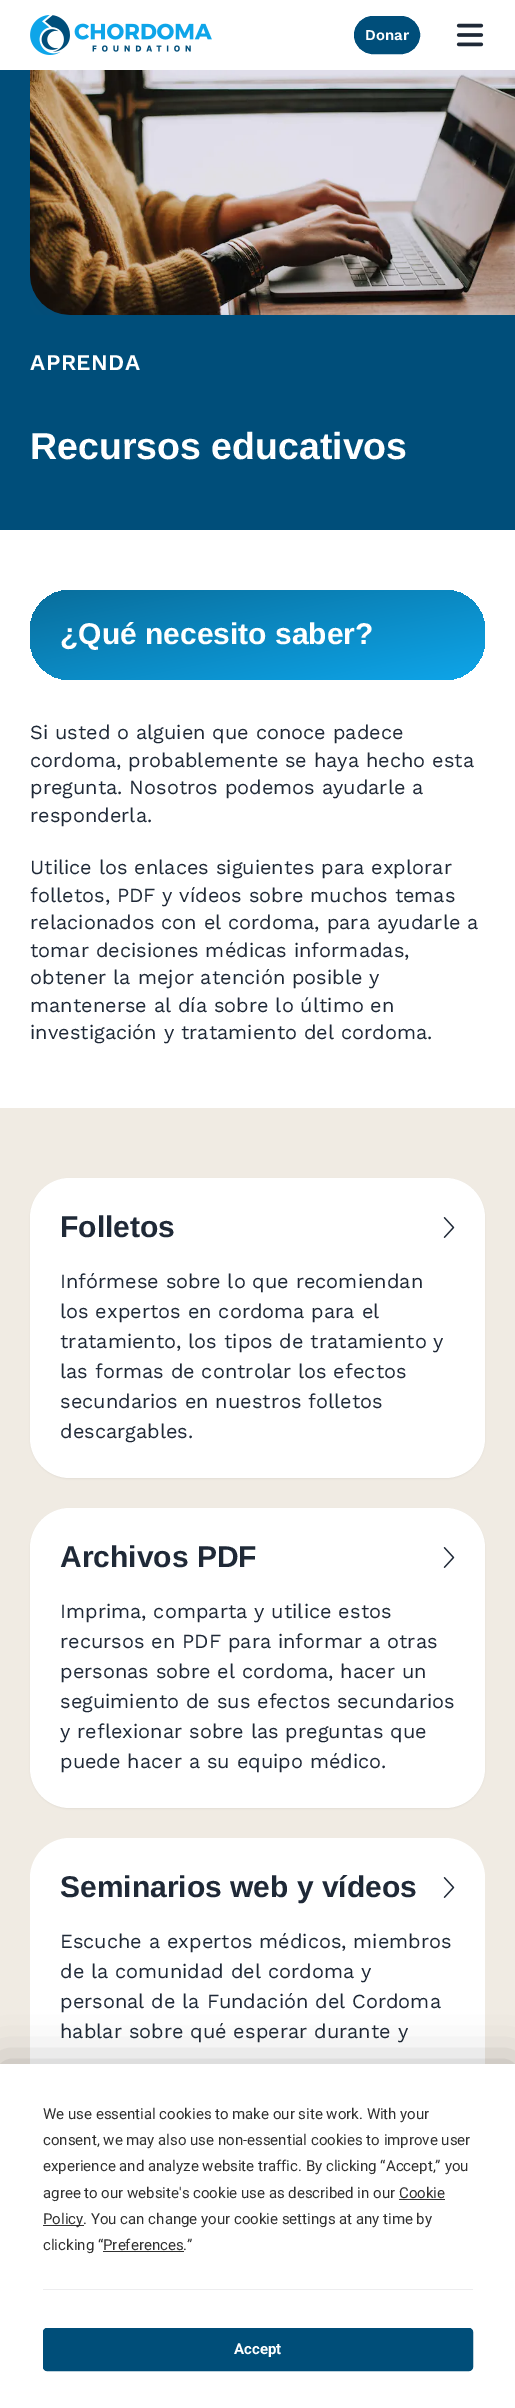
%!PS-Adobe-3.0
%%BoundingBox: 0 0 515 2408
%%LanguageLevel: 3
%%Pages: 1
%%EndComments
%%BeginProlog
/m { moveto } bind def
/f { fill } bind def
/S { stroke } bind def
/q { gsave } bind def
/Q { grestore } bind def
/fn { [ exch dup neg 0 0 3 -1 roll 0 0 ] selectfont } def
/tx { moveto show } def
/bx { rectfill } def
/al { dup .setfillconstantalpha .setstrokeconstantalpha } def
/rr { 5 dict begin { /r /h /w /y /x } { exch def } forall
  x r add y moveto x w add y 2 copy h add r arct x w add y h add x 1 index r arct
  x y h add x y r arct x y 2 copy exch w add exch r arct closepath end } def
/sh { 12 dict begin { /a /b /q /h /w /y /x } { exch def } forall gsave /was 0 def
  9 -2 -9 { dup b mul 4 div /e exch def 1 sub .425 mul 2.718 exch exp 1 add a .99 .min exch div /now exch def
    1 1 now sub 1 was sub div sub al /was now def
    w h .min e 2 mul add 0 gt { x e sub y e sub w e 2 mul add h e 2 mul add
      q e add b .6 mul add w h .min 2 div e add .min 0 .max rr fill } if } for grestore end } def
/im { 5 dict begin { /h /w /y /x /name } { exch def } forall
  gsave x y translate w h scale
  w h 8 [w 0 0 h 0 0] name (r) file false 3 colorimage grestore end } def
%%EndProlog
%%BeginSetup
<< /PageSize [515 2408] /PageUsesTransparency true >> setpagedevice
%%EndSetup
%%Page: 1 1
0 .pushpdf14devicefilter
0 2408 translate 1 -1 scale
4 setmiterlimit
1 setgray
0 0 515 2408 bx
(image0.raw) 30 15 182 40 im
0 0.306 0.478 setrgbcolor
354.5 16.5 65 37 18.5 rr q f Q
S
/WorkSans-SemiBold 15 fn
1 setgray
(Donar) 365 40 tx
(image1.raw) 456 23 28 24 im
0 0.306 0.478 setrgbcolor
0 70 515 460 bx
(image2.raw) 30 70 485 245 im
/WorkSans-SemiBold 22.5 fn
1 setgray
30 370 m 0.5 0 (APRENDA) ashow
/LiberationSans-Bold 37.5 fn
(Recursos educativos) 30 459 tx
q 30 590 455 90 40 rr clip newpath
<< /ShadingType 2 /ColorSpace /DeviceRGB /Coords [240 548 275 722] /Extend [true true] /Function << /FunctionType 2 /Domain [0 1] /C0 [0.035 0.431 0.612] /C1 [0.055 0.647 0.914] /N 1 >> >> shfill Q
/LiberationSans-Bold 30 fn
(¿Qué necesito saber?) 60 644 tx
/WorkSans-Regular 20 fn
0.122 0.161 0.216 setrgbcolor
(Si usted o alguien que conoce padece) 30 739 tx
(cordoma, probablemente se haya hecho esta) 30 767 tx
(pregunta. Nosotros podemos ayudarle a) 30 794 tx
(responderla.) 30 822 tx
(Utilice los enlaces siguientes para explorar) 30 874 tx
(folletos, PDF y vídeos sobre muchos temas) 30 902 tx
(relacionados con el cordoma, para ayudarle a) 30 929 tx
(tomar decisiones médicas informadas,) 30 957 tx
(obtener la mejor atención posible y) 30 984 tx
(mantenerse al día sobre lo último en) 30 1012 tx
(investigación y tratamiento del cordoma.) 30 1039 tx
0.941 0.922 0.89 setrgbcolor
0 1108 515 956 bx
0 setgray
30 1179 455 300 40 1 0.05 sh
1 setgray
30 1178 455 300 40 rr f
/LiberationSans-Bold 30 fn
0.122 0.161 0.216 setrgbcolor
(Folletos) 60 1237 tx
(image3.raw) 443 1217 12 21 im
/WorkSans-Regular 20 fn
(Infórmese sobre lo que recomiendan) 60 1288 tx
(los expertos en cordoma para el) 60 1318 tx
(tratamiento, los tipos de tratamiento y) 60 1348 tx
(las formas de controlar los efectos) 60 1378 tx
(secundarios en nuestros folletos) 60 1408 tx
(descargables.) 60 1438 tx
0 setgray
30 1509 455 300 40 1 0.05 sh
1 setgray
30 1508 455 300 40 rr f
/LiberationSans-Bold 30 fn
0.122 0.161 0.216 setrgbcolor
(Archivos PDF) 60 1567 tx
(image3.raw) 443 1547 12 21 im
/WorkSans-Regular 20 fn
(Imprima, comparta y utilice estos) 60 1618 tx
(recursos en PDF para informar a otras) 60 1648 tx
(personas sobre el cordoma, hacer un) 60 1678 tx
(seguimiento de sus efectos secundarios) 60 1708 tx
(y reflexionar sobre las preguntas que) 60 1738 tx
(puede hacer a su equipo médico.) 60 1768 tx
1 setgray
30 1838 455 330 40 rr f
/LiberationSans-Bold 30 fn
0.122 0.161 0.216 setrgbcolor
(Seminarios web y vídeos) 60 1897 tx
(image3.raw) 443 1877 12 21 im
/WorkSans-Regular 20 fn
(Escuche a expertos médicos, miembros) 60 1948 tx
(de la comunidad del cordoma y) 60 1978 tx
(personal de la Fundación del Cordoma) 60 2008 tx
(hablar sobre qué esperar durante y) 60 2038 tx
0 setgray
0 2064 515 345 0 22 0.25 sh
1 setgray
0 2064 515 344 bx
/Roboto-Regular 15 fn
0.188 setgray
(We use essential cookies to make our site work. With your) 43 2119 tx
(consent, we may also use non-essential cookies to improve user) 43 2145 tx
(experience and analyze website traffic. By clicking “Accept,” you) 43 2171 tx
(agree to our website's cookie use as described in our Cookie) 43 2198 tx
43 2225 41 1 bx
(Policy. You can change your cookie settings at any time by) 43 2224 tx
399 2199 46 1 bx
(clicking “Preferences.”) 43 2250 tx
103 2251 81 1 bx
0.929 0.929 0.937 setrgbcolor
43 2289 430 1 bx
0 0.306 0.475 setrgbcolor
43.5 2328.5 429 42 3.5 rr q f Q
S
/Roboto-Bold 15 fn
1 setgray
(Accept) 234 2354 tx
.poppdf14devicefilter showpage
%%EOF
